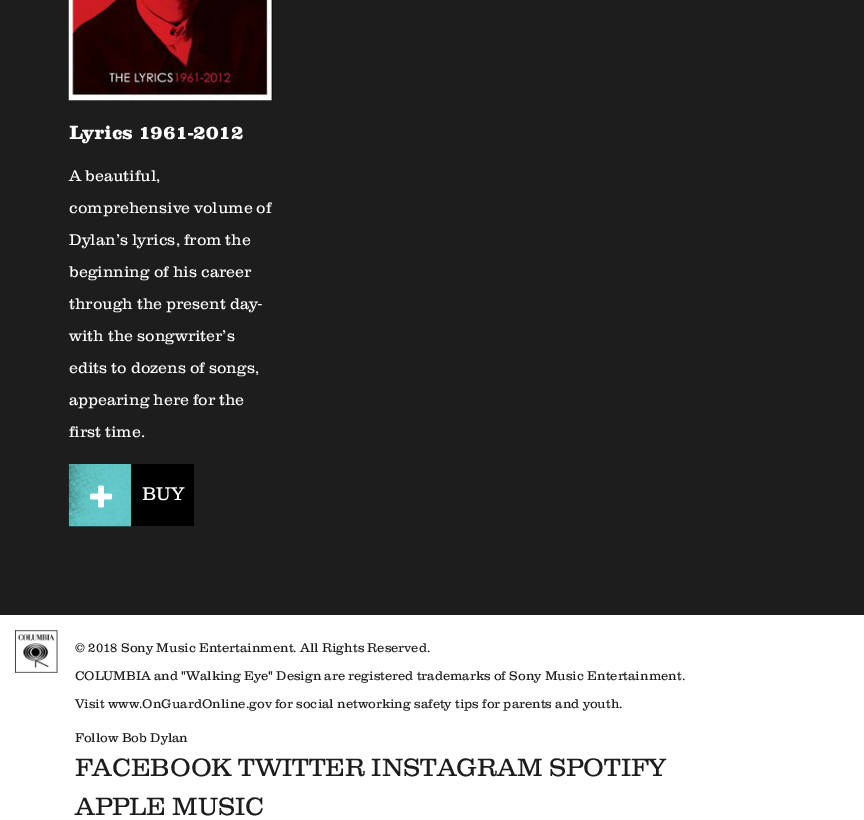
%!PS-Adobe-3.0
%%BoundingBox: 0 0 864 820
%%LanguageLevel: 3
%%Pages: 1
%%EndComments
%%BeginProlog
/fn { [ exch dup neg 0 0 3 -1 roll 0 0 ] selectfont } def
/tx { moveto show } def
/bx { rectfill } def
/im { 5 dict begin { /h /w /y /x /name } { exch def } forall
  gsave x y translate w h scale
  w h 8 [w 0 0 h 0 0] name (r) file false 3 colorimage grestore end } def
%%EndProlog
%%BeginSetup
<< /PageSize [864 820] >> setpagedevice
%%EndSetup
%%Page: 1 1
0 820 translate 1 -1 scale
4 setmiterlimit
0.114 setgray
0 0 864 820 bx
(image0.raw) 68 0 205 101 im
/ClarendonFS-ExtraBold 20 fn
1 setgray
(Lyrics 1961-2012) 69 139 tx
/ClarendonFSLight-Regular 16 fn
(A beautiful,) 69 181 tx
(comprehensive volume of) 69 213 tx
(Dylan’s lyrics, from the) 69 245 tx
(beginning of his career) 69 277 tx
(through the present day-) 69 309 tx
(with the songwriter’s) 69 341 tx
(edits to dozens of songs,) 69 373 tx
(appearing here for the) 69 405 tx
(first time.) 69 437 tx
(image1.raw) 68 464 64 63 im
(image2.raw) 90 485 22 23 im
0 setgray
131 464 63 62 bx
/ClarendonFSLight-Regular 19 fn
1 setgray
(BUY) 142 500 tx
0 615 864 205 bx
(image3.raw) 15 630 43 43 im
/ClarendonFSLight-Regular 13 fn
0.114 setgray
(© 2018 Sony Music Entertainment. All Rights Reserved.) 75 652 tx
(COLUMBIA and "Walking Eye" Design are registered trademarks of Sony Music Entertainment.) 75 680 tx
(Visit www.OnGuardOnline.gov for social networking safety tips for parents and youth.) 75 708 tx
(Follow Bob Dylan) 75 742 tx
/ClarendonFSLight-Regular 26 fn
(FACEBOOK TWITTER INSTAGRAM SPOTIFY) 75 776 tx
(APPLE MUSIC) 75 815 tx
showpage
%%EOF
